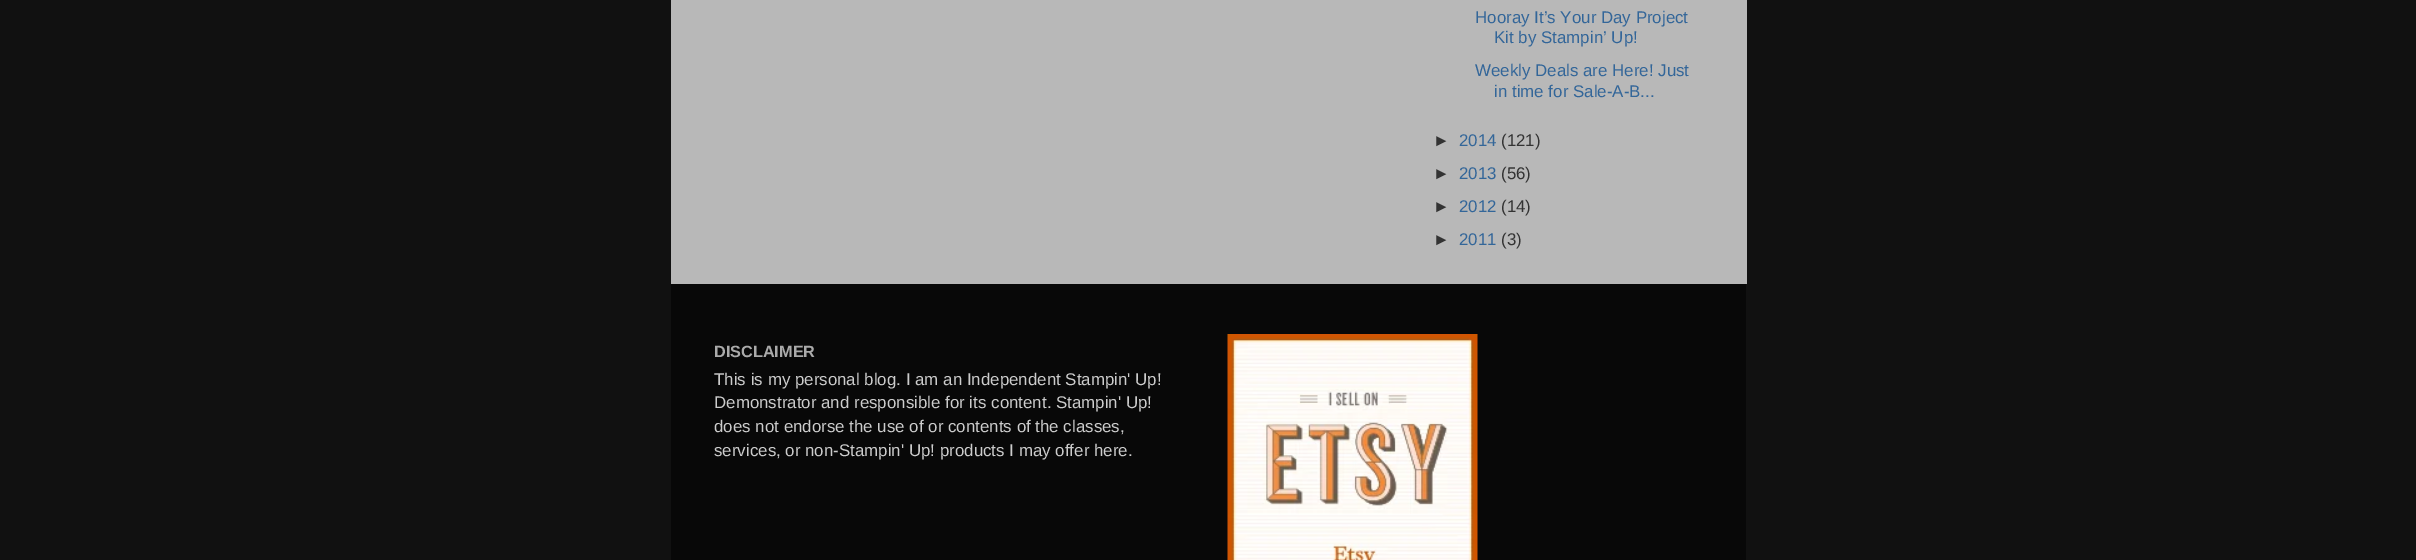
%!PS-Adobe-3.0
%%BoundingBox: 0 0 2416 560
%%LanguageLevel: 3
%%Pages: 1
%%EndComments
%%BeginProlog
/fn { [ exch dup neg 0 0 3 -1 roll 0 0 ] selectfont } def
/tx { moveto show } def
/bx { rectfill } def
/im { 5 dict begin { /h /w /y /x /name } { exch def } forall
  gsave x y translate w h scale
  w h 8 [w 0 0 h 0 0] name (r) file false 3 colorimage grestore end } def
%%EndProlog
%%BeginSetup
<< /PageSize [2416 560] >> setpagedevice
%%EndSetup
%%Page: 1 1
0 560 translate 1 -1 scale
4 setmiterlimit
0.067 setgray
0 0 2416 560 bx
0.722 setgray
671 0 1076 284 bx
/LiberationSans-Regular 16.9 fn
0.2 0.4 0.6 setrgbcolor
(Hooray It’s Your Day Project) 1475 23 tx
(Kit by Stampin’ Up!) 1494 43 tx
(Weekly Deals are Here! Just) 1475 76 tx
(in time for Sale-A-B...) 1494 97 tx
0.2 setgray
(►) 1433 146 tx
0.2 0.4 0.6 setrgbcolor
(2014) 1459 146 tx
0.2 setgray
(\(121\)) 1501 146 tx
(►) 1433 179 tx
0.2 0.4 0.6 setrgbcolor
(2013) 1459 179 tx
0.2 setgray
(\(56\)) 1501 179 tx
(►) 1433 212 tx
0.2 0.4 0.6 setrgbcolor
(2012) 1459 212 tx
0.2 setgray
(\(14\)) 1501 212 tx
(►) 1433 245 tx
0.2 0.4 0.6 setrgbcolor
(2011) 1459 245 tx
0.2 setgray
(\(3\)) 1501 245 tx
0.031 setgray
671 284 1075 276 bx
/LiberationSans-Bold 16.25 fn
0.667 setgray
(DISCLAIMER) 714 357 tx
/LiberationSans-Regular 16.9 fn
0.8 setgray
(This is my personal blog. I am an Independent Stampin' Up!) 714 385 tx
(Demonstrator and responsible for its content. Stampin' Up!) 714 408 tx
(does not endorse the use of or contents of the classes,) 714 432 tx
(services, or non-Stampin' Up! products I may offer here.) 714 456 tx
(image0.raw) 1227 334 251 226 im
showpage
%%EOF
